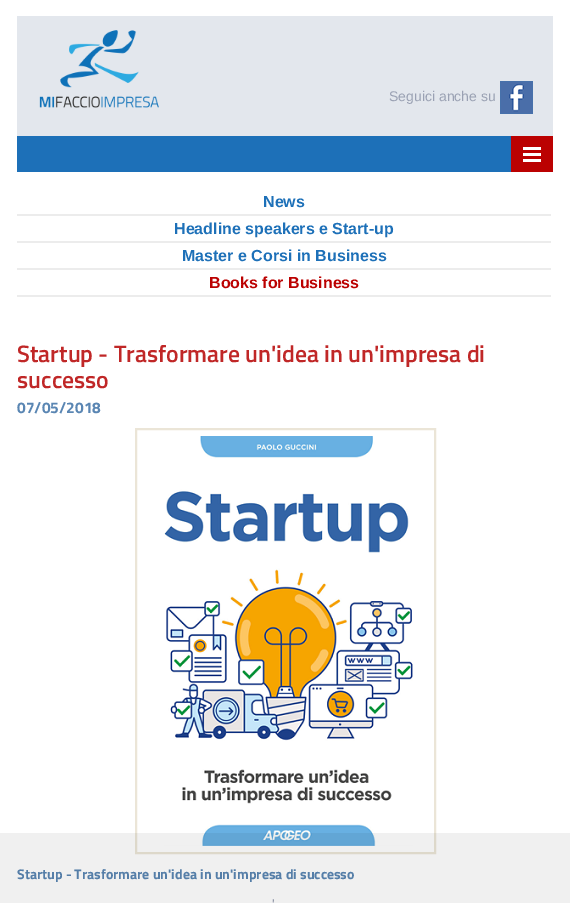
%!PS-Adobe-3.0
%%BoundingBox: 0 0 570 903
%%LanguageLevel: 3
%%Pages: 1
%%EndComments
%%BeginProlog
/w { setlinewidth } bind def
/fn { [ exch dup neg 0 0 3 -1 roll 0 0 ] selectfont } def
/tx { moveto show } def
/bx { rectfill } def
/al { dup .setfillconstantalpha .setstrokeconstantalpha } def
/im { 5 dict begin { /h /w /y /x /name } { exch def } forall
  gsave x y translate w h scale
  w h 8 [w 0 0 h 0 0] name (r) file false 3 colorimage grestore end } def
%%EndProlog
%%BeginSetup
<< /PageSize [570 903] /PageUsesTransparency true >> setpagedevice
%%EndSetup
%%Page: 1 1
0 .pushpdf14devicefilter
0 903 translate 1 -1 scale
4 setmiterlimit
1 setgray
0 0 570 903 bx
0.89 0.906 0.929 setrgbcolor
17 16 536 120 bx
(image0.raw) 39 30 120 78 im
/LiberationSans-Regular 14 fn
0.604 0.631 0.702 setrgbcolor
(Seguici anche su) 389 101 tx
(image1.raw) 500 81 33 33 im
0.114 0.439 0.722 setrgbcolor
17 136 494 36 bx
0.733 0.004 0.004 setrgbcolor
511 136 42 36 bx
1 setgray
523 147 18 3 bx
523 153 18 3 bx
523 159 18 3 bx
0.925 setgray
17 214 534 2 bx
/LiberationSans-Bold 16 fn
0.114 0.439 0.722 setrgbcolor
(News) 263 207 tx
0.925 setgray
17 241 534 2 bx
0.114 0.439 0.722 setrgbcolor
(Headline speakers e Start-up) 174 234 tx
0.925 setgray
17 268 534 2 bx
0.114 0.439 0.722 setrgbcolor
(Master e Corsi in Business) 182 261 tx
0.925 setgray
17 295 534 2 bx
0.733 0.004 0.004 setrgbcolor
(Books for Business) 209 288 tx
/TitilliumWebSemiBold-SemiBold 23.75 fn
0.753 0.153 0.153 setrgbcolor
(Startup - Trasformare un'idea in un'impresa di) 17 362 tx
(successo) 17 388 tx
/TitilliumWeb-Bold 15.5 fn
0.353 0.525 0.702 setrgbcolor
(07/05/2018) 17 413 tx
0.922 0.898 0.843 setrgbcolor
2 w
136 429 299 424 rectstroke
(image2.raw) 164 436 249 410 im
/TitilliumWeb-Bold 14 fn
0.353 0.525 0.702 setrgbcolor
(Startup - Trasformare un'idea in un'impresa di successo) 17 879 tx
/LiberationSans-Regular 14 fn
0.604 0.631 0.702 setrgbcolor
(') 272 909 tx
0.06 al
0 setgray
0 833 570 70 bx
.poppdf14devicefilter showpage
%%EOF
